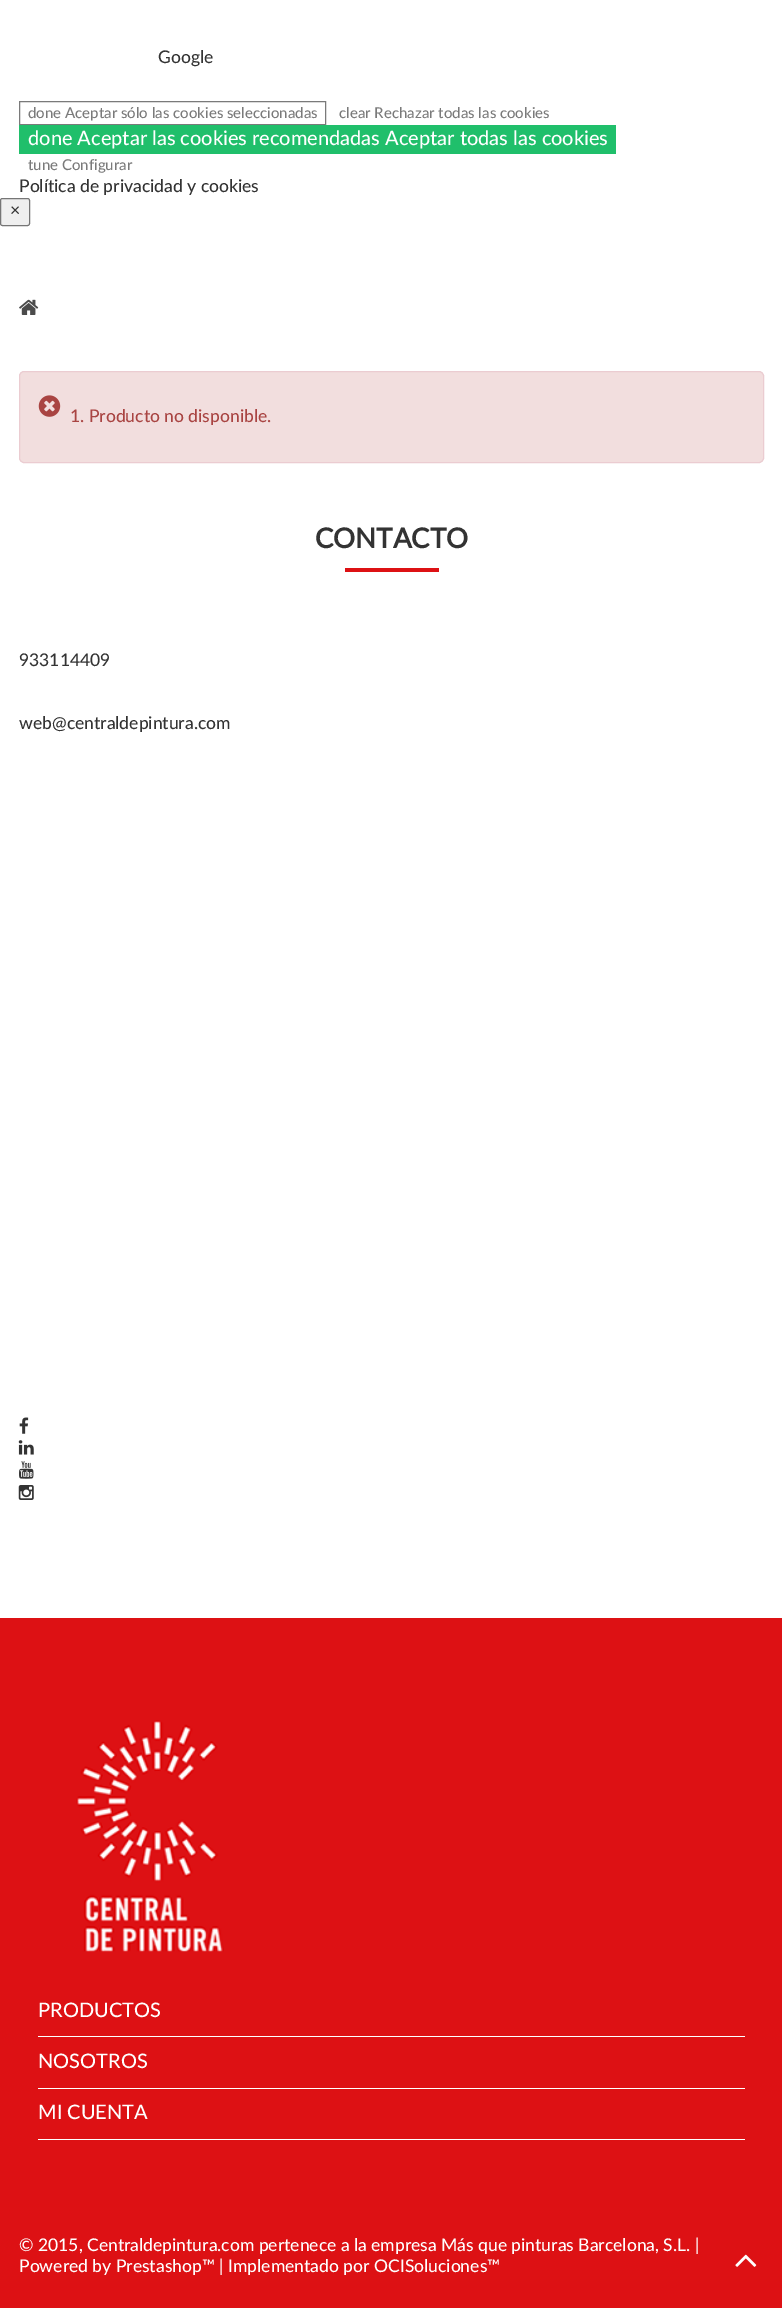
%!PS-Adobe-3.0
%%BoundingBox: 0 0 782 2308
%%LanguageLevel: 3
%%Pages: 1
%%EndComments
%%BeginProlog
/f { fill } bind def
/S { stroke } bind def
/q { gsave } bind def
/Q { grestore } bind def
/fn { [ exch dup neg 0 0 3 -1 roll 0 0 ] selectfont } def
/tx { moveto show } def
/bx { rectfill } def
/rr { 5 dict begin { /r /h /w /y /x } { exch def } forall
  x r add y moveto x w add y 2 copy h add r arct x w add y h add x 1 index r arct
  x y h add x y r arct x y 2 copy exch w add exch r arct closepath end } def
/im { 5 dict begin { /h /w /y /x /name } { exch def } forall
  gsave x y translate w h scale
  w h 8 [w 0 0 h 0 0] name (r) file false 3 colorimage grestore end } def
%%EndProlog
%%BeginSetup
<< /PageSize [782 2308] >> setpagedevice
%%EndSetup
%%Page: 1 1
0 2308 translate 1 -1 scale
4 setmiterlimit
1 setgray
0 0 782 2308 bx
/Lato-Medium 17.5 fn
0.2 setgray
(Google) 158 63 tx
0.478 setgray
19.5 101.5 306 23 rectstroke
/Lato-Medium 15 fn
(done Aceptar sólo las cookies seleccionadas) 28 118 tx
(clear Rechazar todas las cookies) 339 118 tx
0.125 0.749 0.42 setrgbcolor
19 125 597 29 bx
/Lato-Medium 20 fn
1 setgray
(done Aceptar las cookies recomendadas Aceptar todas las cookies) 28 145 tx
/Lato-Medium 15 fn
0.478 setgray
(tune Configurar) 28 170 tx
/Lato-Medium 17.5 fn
0.2 setgray
(Política de privacidad y cookies) 19 192 tx
0.937 setgray
0.5 198.5 29 27 2 rr q f Q
0.463 setgray
S
0.2 setgray
(×) 10 216 tx
(image0.raw) 19 299 20 16 im
0.949 0.871 0.871 setrgbcolor
19.5 371.5 744 91 4.5 rr q f Q
0.922 0.8 0.82 setrgbcolor
S
(image1.raw) 38 395 23 22 im
0.663 0.267 0.259 setrgbcolor
(1. Producto no disponible.) 70 422 tx
/Lato-Bold 27.5 fn
0.2 setgray
(CONTACTO) 315 548 tx
0.867 0.067 0.078 setrgbcolor
345 568 94 4 bx
/Lato-Medium 17.5 fn
0.2 setgray
(933114409) 19 666 tx
(web@centraldepintura.com) 19 729 tx
(image2.raw) 19 1417 10 17 im
(image3.raw) 18 1440 16 15 im
(image4.raw) 19 1461 15 18 im
(image5.raw) 18 1485 16 15 im
0.867 0.067 0.078 setrgbcolor
0 1618 782 690 bx
(image6.raw) 76 1720 148 232 im
1 setgray
38 2036 707 1 bx
/Lato-Medium 20 fn
(PRODUCTOS) 38 2017 tx
38 2088 707 1 bx
(NOSOTROS) 38 2068 tx
38 2139 707 1 bx
(MI CUENTA) 38 2119 tx
/Lato-Medium 17.5 fn
(© 2015, Centraldepintura.com pertenece a la empresa Más que pinturas Barcelona, S.L. |) 19 2251 tx
(Powered by Prestashop™ | Implementado por OCISoluciones™) 19 2272 tx
(image7.raw) 735 2254 22 13 im
showpage
%%EOF
